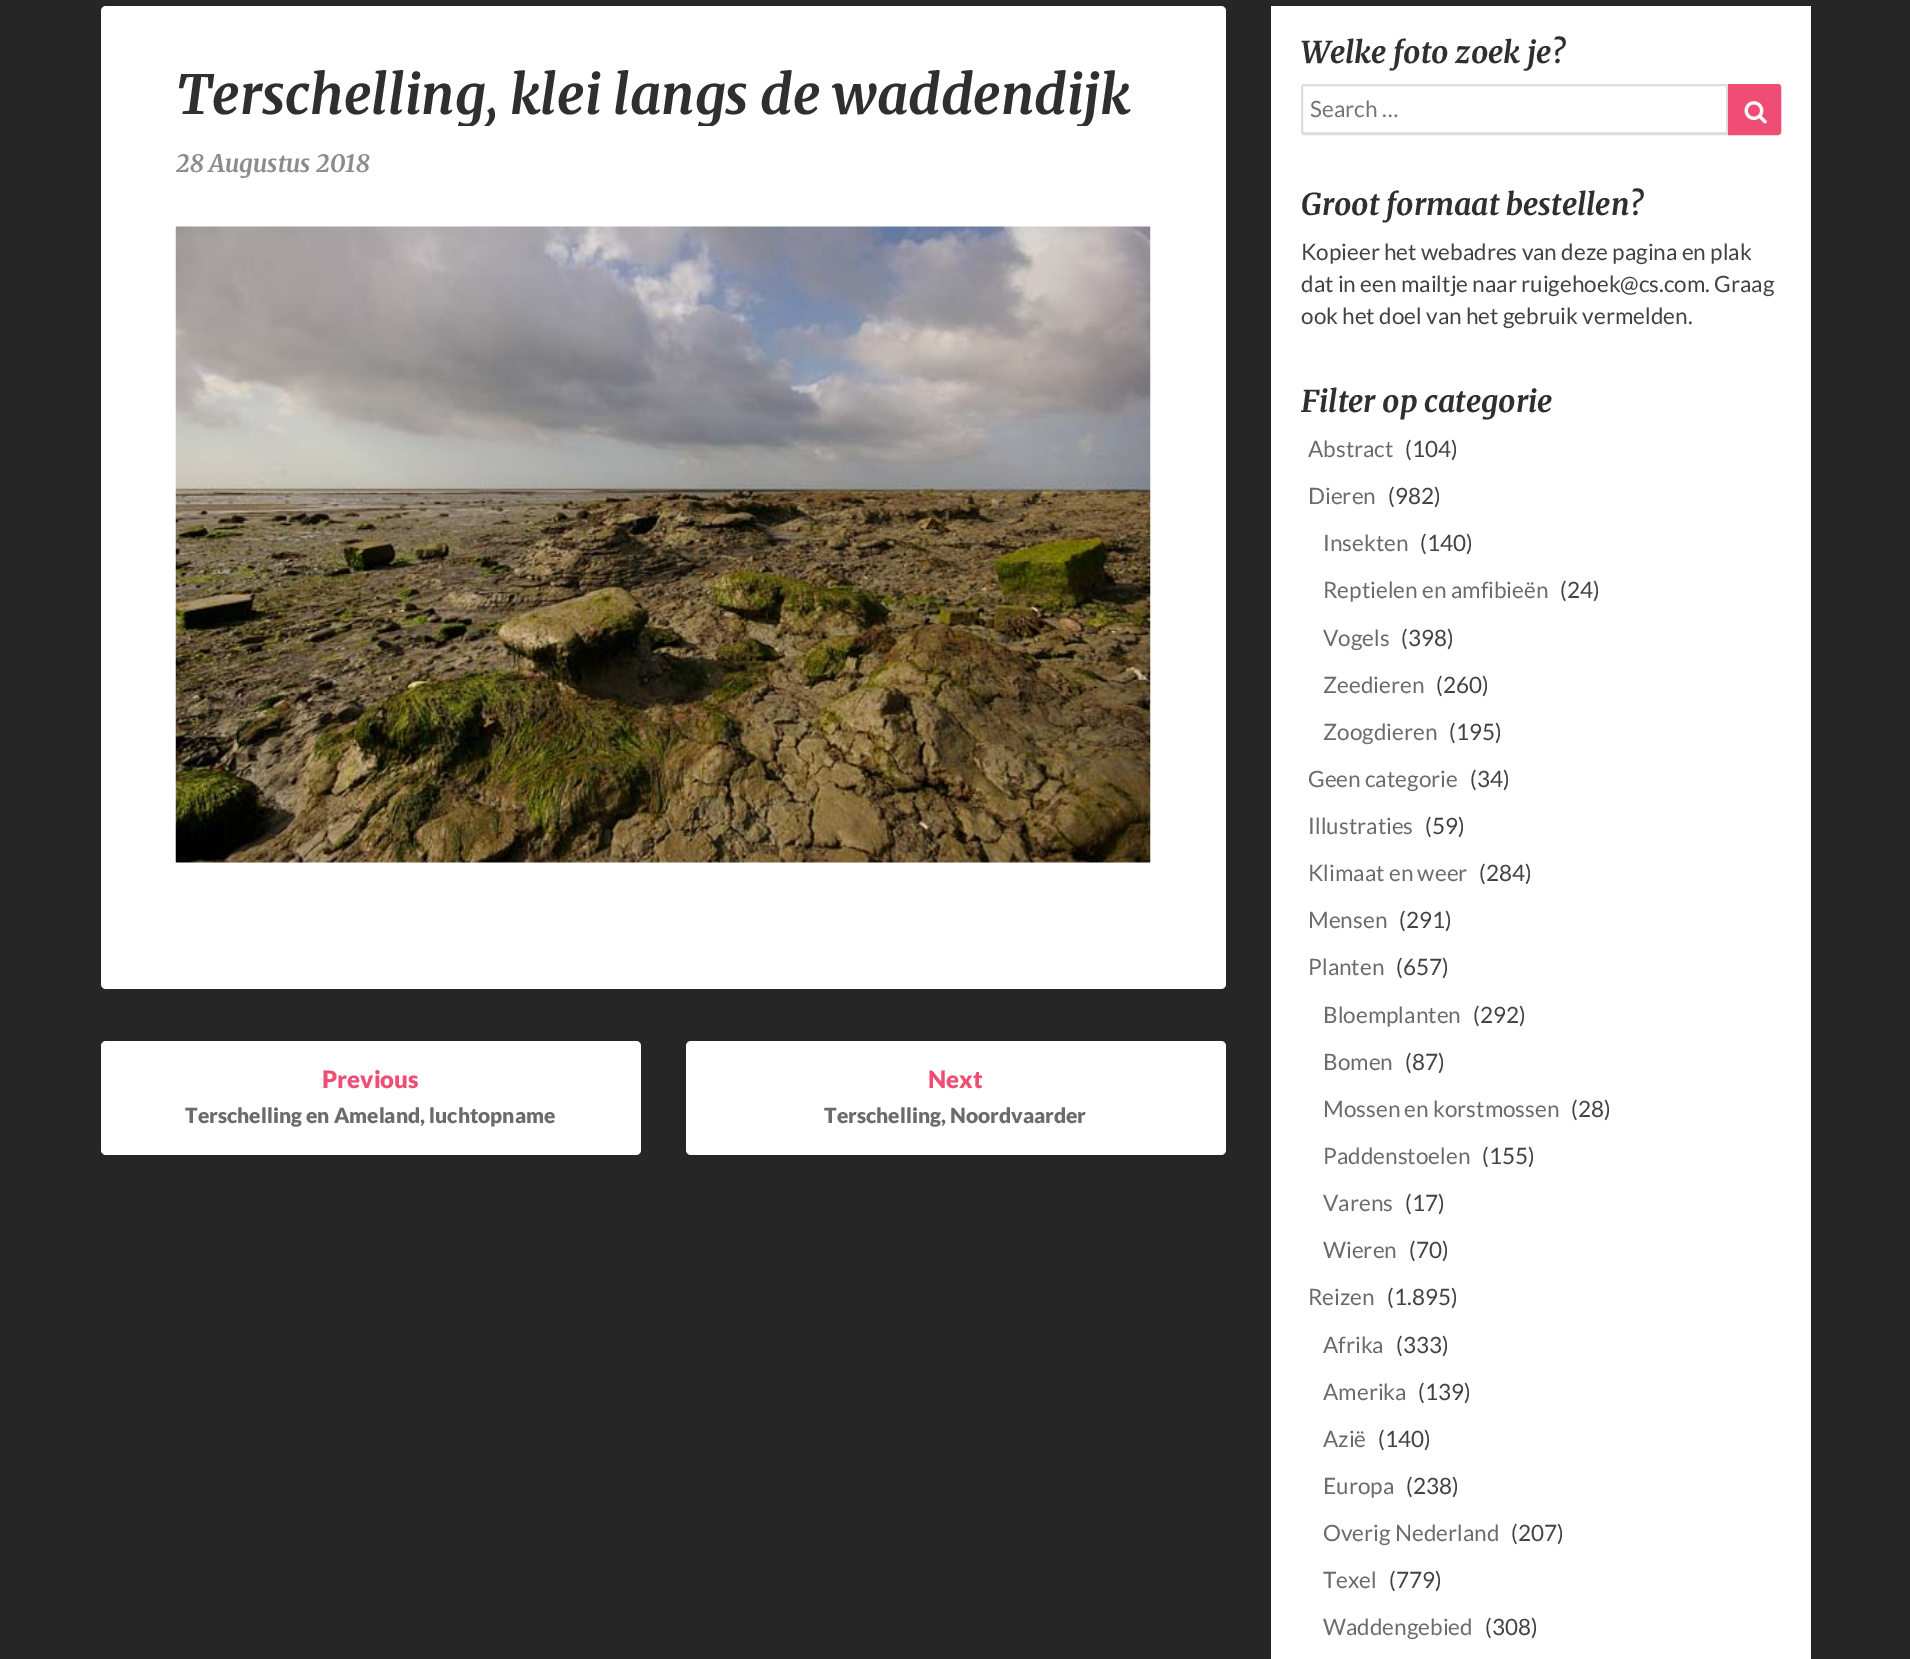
%!PS-Adobe-3.0
%%BoundingBox: 0 0 1910 1659
%%LanguageLevel: 3
%%Pages: 1
%%EndComments
%%BeginProlog
/m { moveto } bind def
/l { lineto } bind def
/c { curveto } bind def
/h { closepath } bind def
/f { fill } bind def
/S { stroke } bind def
/q { gsave } bind def
/Q { grestore } bind def
/w { setlinewidth } bind def
/fn { [ exch dup neg 0 0 3 -1 roll 0 0 ] selectfont } def
/tx { moveto show } def
/bx { rectfill } def
/rr { 5 dict begin { /r /h /w /y /x } { exch def } forall
  x r add y moveto x w add y 2 copy h add r arct x w add y h add x 1 index r arct
  x y h add x y r arct x y 2 copy exch w add exch r arct closepath end } def
/im { 5 dict begin { /h /w /y /x /name } { exch def } forall
  gsave x y translate w h scale
  w h 8 [w 0 0 h 0 0] name (r) file false 3 colorimage grestore end } def
%%EndProlog
%%BeginSetup
<< /PageSize [1910 1659] >> setpagedevice
%%EndSetup
%%Page: 1 1
0 1659 translate 1 -1 scale
4 setmiterlimit
0.149 setgray
0 0 1910 1659 bx
1 setgray
101 6 1125 983 5 rr f
q
176 66 975 60 rectclip
/Merriweather-LightItalic 54 fn
0.184 setgray
(Terschelling, klei langs de waddendijk) 176 114 tx
Q
/Merriweather-LightItalic 24 fn
0.549 setgray
(28 Augustus 2018) 176 172 tx
(image0.raw) 175 226 976 637 im
1 setgray
101 1041 540 114 5 rr f
/Lato-Black 24 fn
0.941 0.302 0.459 setrgbcolor
(Previous) 322 1088 tx
/Lato-Black 21 fn
0.42 setgray
(Terschelling en Ameland, luchtopname) 185 1123 tx
1 setgray
686 1041 540 114 5 rr f
/Lato-Black 24 fn
0.941 0.302 0.459 setrgbcolor
(Next) 928 1088 tx
/Lato-Black 21 fn
0.42 setgray
(Terschelling, Noordvaarder) 824 1123 tx
1 setgray
1271 6 540 1653 bx
/Merriweather-LightItalic 30 fn
0.184 setgray
(Welke foto zoek je?) 1301 63 tx
0.867 setgray
2 w
1304 85 m 1727 85 l 1727 134 l 1304 134 l 1303 134 1302 133 1302 132 c 1302 87 l 1302 86 1303 85 1304 85 c h S
1302 132 426 1 bx
/Lato-Regular 22.5 fn
0.459 setgray
(Search …) 1310 117 tx
0.941 0.302 0.459 setrgbcolor
1729 85 m 1778 85 l 1779 85 1780 86 1780 87 c 1780 132 l 1780 133 1779 134 1778 134 c 1729 134 l h q f Q
S
(image1.raw) 1744 101 23 23 im
/Merriweather-LightItalic 30 fn
0.184 setgray
(Groot formaat bestellen?) 1301 215 tx
/Lato-Regular 22.5 fn
0.259 setgray
(Kopieer het webadres van deze pagina en plak) 1301 260 tx
(dat in een mailtje naar ruigehoek@cs.com. Graag) 1301 292 tx
(ook het doel van het gebruik vermelden.) 1301 324 tx
/Merriweather-LightItalic 30 fn
0.184 setgray
(Filter op categorie) 1301 412 tx
/Lato-Regular 22.5 fn
0.42 setgray
(Abstract) 1308 457 tx
0.259 setgray
(\(104\)) 1405 457 tx
0.42 setgray
(Dieren) 1308 504 tx
0.259 setgray
(\(982\)) 1388 504 tx
0.42 setgray
(Insekten) 1323 551 tx
0.259 setgray
(\(140\)) 1420 551 tx
0.42 setgray
(Reptielen en amfibieën) 1323 598 tx
0.259 setgray
(\(24\)) 1560 598 tx
0.42 setgray
(Vogels) 1323 646 tx
0.259 setgray
(\(398\)) 1401 646 tx
0.42 setgray
(Zeedieren) 1323 693 tx
0.259 setgray
(\(260\)) 1436 693 tx
0.42 setgray
(Zoogdieren) 1323 740 tx
0.259 setgray
(\(195\)) 1449 740 tx
0.42 setgray
(Geen categorie) 1308 787 tx
0.259 setgray
(\(34\)) 1470 787 tx
0.42 setgray
(Illustraties) 1308 834 tx
0.259 setgray
(\(59\)) 1425 834 tx
0.42 setgray
(Klimaat en weer) 1308 881 tx
0.259 setgray
(\(284\)) 1479 881 tx
0.42 setgray
(Mensen) 1308 928 tx
0.259 setgray
(\(291\)) 1399 928 tx
0.42 setgray
(Planten) 1308 975 tx
0.259 setgray
(\(657\)) 1396 975 tx
0.42 setgray
(Bloemplanten) 1323 1023 tx
0.259 setgray
(\(292\)) 1473 1023 tx
0.42 setgray
(Bomen) 1323 1070 tx
0.259 setgray
(\(87\)) 1405 1070 tx
0.42 setgray
(Mossen en korstmossen) 1323 1117 tx
0.259 setgray
(\(28\)) 1571 1117 tx
0.42 setgray
(Paddenstoelen) 1323 1164 tx
0.259 setgray
(\(155\)) 1482 1164 tx
0.42 setgray
(Varens) 1323 1211 tx
0.259 setgray
(\(17\)) 1405 1211 tx
0.42 setgray
(Wieren) 1323 1258 tx
0.259 setgray
(\(70\)) 1409 1258 tx
0.42 setgray
(Reizen) 1308 1305 tx
0.259 setgray
(\(1.895\)) 1387 1305 tx
0.42 setgray
(Afrika) 1323 1353 tx
0.259 setgray
(\(333\)) 1396 1353 tx
0.42 setgray
(Amerika) 1323 1400 tx
0.259 setgray
(\(139\)) 1418 1400 tx
0.42 setgray
(Azië) 1323 1447 tx
0.259 setgray
(\(140\)) 1378 1447 tx
0.42 setgray
(Europa) 1323 1494 tx
0.259 setgray
(\(238\)) 1406 1494 tx
0.42 setgray
(Overig Nederland) 1323 1541 tx
0.259 setgray
(\(207\)) 1511 1541 tx
0.42 setgray
(Texel) 1323 1588 tx
0.259 setgray
(\(779\)) 1389 1588 tx
0.42 setgray
(Waddengebied) 1323 1635 tx
0.259 setgray
(\(308\)) 1485 1635 tx
showpage
%%EOF
